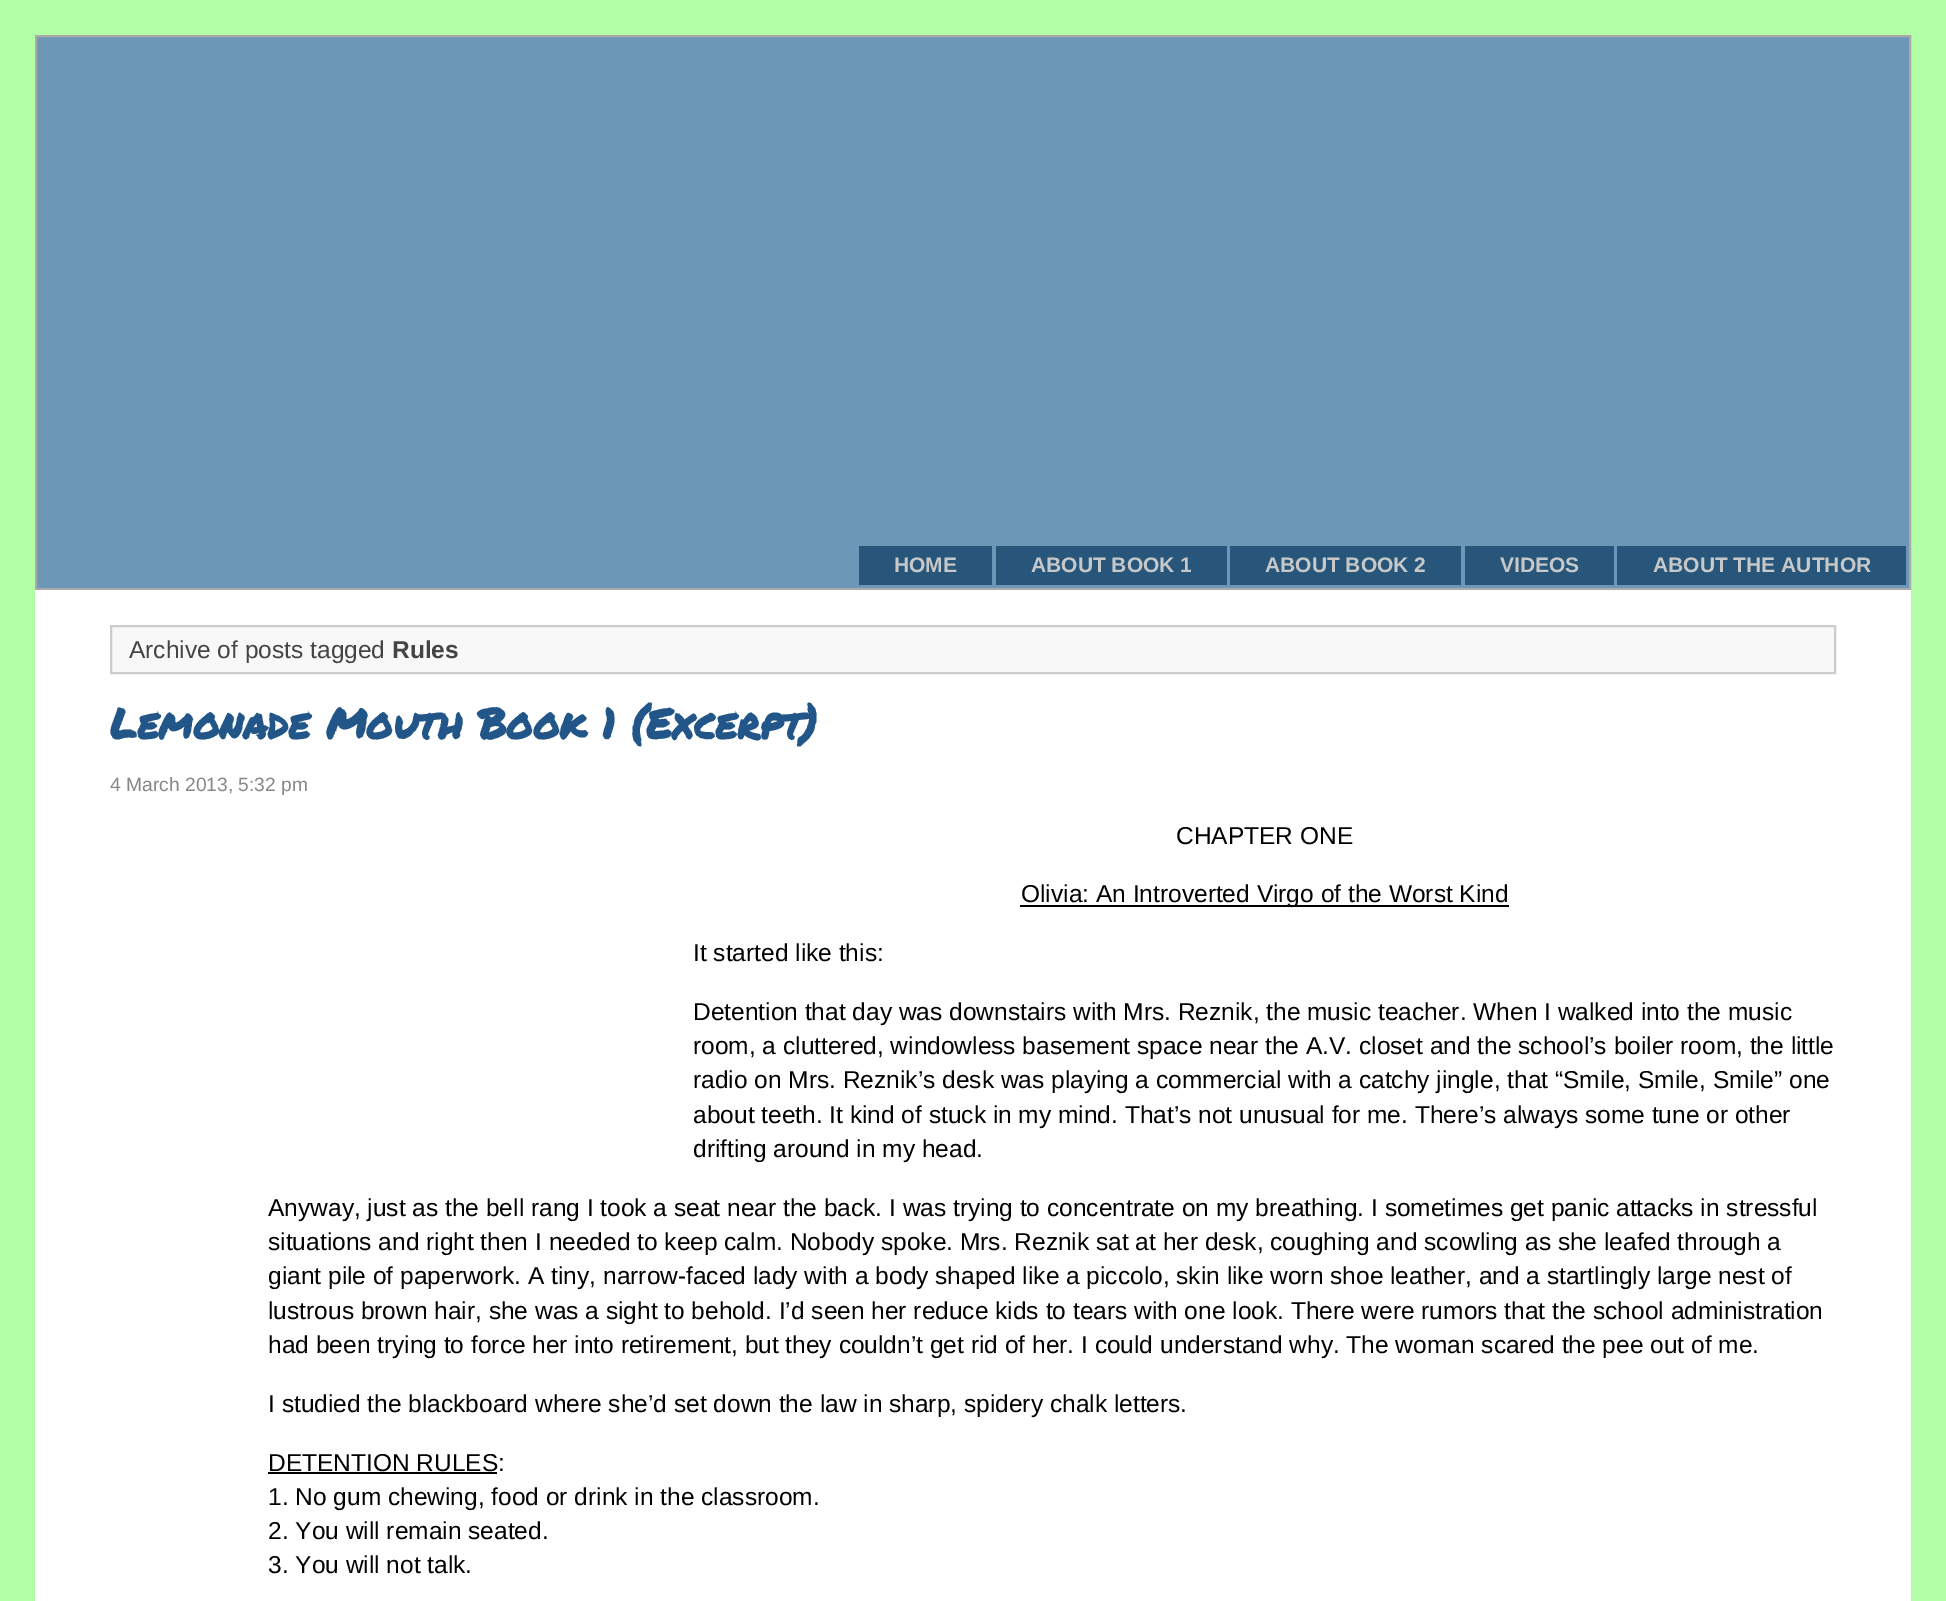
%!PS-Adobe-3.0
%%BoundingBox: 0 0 1946 1601
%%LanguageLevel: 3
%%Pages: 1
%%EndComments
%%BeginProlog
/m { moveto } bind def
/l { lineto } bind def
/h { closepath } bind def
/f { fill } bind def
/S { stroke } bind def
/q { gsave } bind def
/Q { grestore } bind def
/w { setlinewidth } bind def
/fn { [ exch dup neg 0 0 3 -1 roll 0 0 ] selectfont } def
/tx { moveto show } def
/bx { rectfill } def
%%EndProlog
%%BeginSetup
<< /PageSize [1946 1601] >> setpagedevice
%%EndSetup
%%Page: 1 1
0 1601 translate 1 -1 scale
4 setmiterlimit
0.702 1 0.659 setrgbcolor
0 0 1946 1601 bx
0.427 0.592 0.718 setrgbcolor
36 36 m 1910 36 l 1910 589 l 36 589 l h q f Q
0.667 setgray
2 w
S
0.153 0.337 0.478 setrgbcolor
859 546 133 39 bx
/LiberationSans-Bold 21 fn
0.776 0.784 0.788 setrgbcolor
(HOME) 894 572 tx
0.153 0.337 0.478 setrgbcolor
996 546 231 39 bx
0.776 0.784 0.788 setrgbcolor
(ABOUT BOOK 1) 1031 572 tx
0.153 0.337 0.478 setrgbcolor
1230 546 231 39 bx
0.776 0.784 0.788 setrgbcolor
(ABOUT BOOK 2) 1265 572 tx
0.153 0.337 0.478 setrgbcolor
1465 546 149 39 bx
0.776 0.784 0.788 setrgbcolor
(VIDEOS) 1500 572 tx
0.153 0.337 0.478 setrgbcolor
1617 546 289 39 bx
0.776 0.784 0.788 setrgbcolor
(ABOUT THE AUTHOR) 1653 572 tx
1 setgray
35 590 1876 1011 bx
0.973 setgray
111 626 m 1835 626 l 1835 673 l 111 673 l h q f Q
0.8 setgray
S
/LiberationSans-Regular 24.5 fn
0.267 setgray
(Archive of posts tagged) 129 658 tx
/LiberationSans-Bold 24.5 fn
(Rules) 392 658 tx
/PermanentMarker-Bold 42 fn
0.133 0.333 0.533 setrgbcolor
(Lemonade Mouth Book 1 \(Excerpt\)) 110 739 tx
/LiberationSans-Regular 19.25 fn
0.533 setgray
(4 March 2013, 5:32 pm) 110 791 tx
/LiberationSans-Regular 24.5 fn
0 setgray
(CHAPTER ONE) 1176 844 tx
1020 905 489 2 bx
(Olivia: An Introverted Virgo of the Worst Kind) 1021 902 tx
(It started like this:) 693 961 tx
(Detention that day was downstairs with Mrs. Reznik, the music teacher. When I walked into the music) 693 1020 tx
(room, a cluttered, windowless basement space near the A.V. closet and the school’s boiler room, the little) 693 1054 tx
(radio on Mrs. Reznik’s desk was playing a commercial with a catchy jingle, that “Smile, Smile, Smile” one) 693 1088 tx
(about teeth. It kind of stuck in my mind. That’s not unusual for me. There’s always some tune or other) 693 1123 tx
(drifting around in my head.) 693 1157 tx
(Anyway, just as the bell rang I took a seat near the back. I was trying to concentrate on my breathing. I sometimes get panic attacks in stressful) 268 1216 tx
(situations and right then I needed to keep calm. Nobody spoke. Mrs. Reznik sat at her desk, coughing and scowling as she leafed through a) 268 1250 tx
(giant pile of paperwork. A tiny, narrow-faced lady with a body shaped like a piccolo, skin like worn shoe leather, and a startlingly large nest of) 268 1284 tx
(lustrous brown hair, she was a sight to behold. I’d seen her reduce kids to tears with one look. There were rumors that the school administration) 268 1319 tx
(had been trying to force her into retirement, but they couldn’t get rid of her. I could understand why. The woman scared the pee out of me.) 268 1353 tx
(I studied the blackboard where she’d set down the law in sharp, spidery chalk letters.) 268 1412 tx
(DETENTION RULES:) 268 1471 tx
268 1472 229 2 bx
(1. No gum chewing, food or drink in the classroom.) 268 1505 tx
(2. You will remain seated.) 268 1539 tx
(3. You will not talk.) 268 1573 tx
showpage
%%EOF
